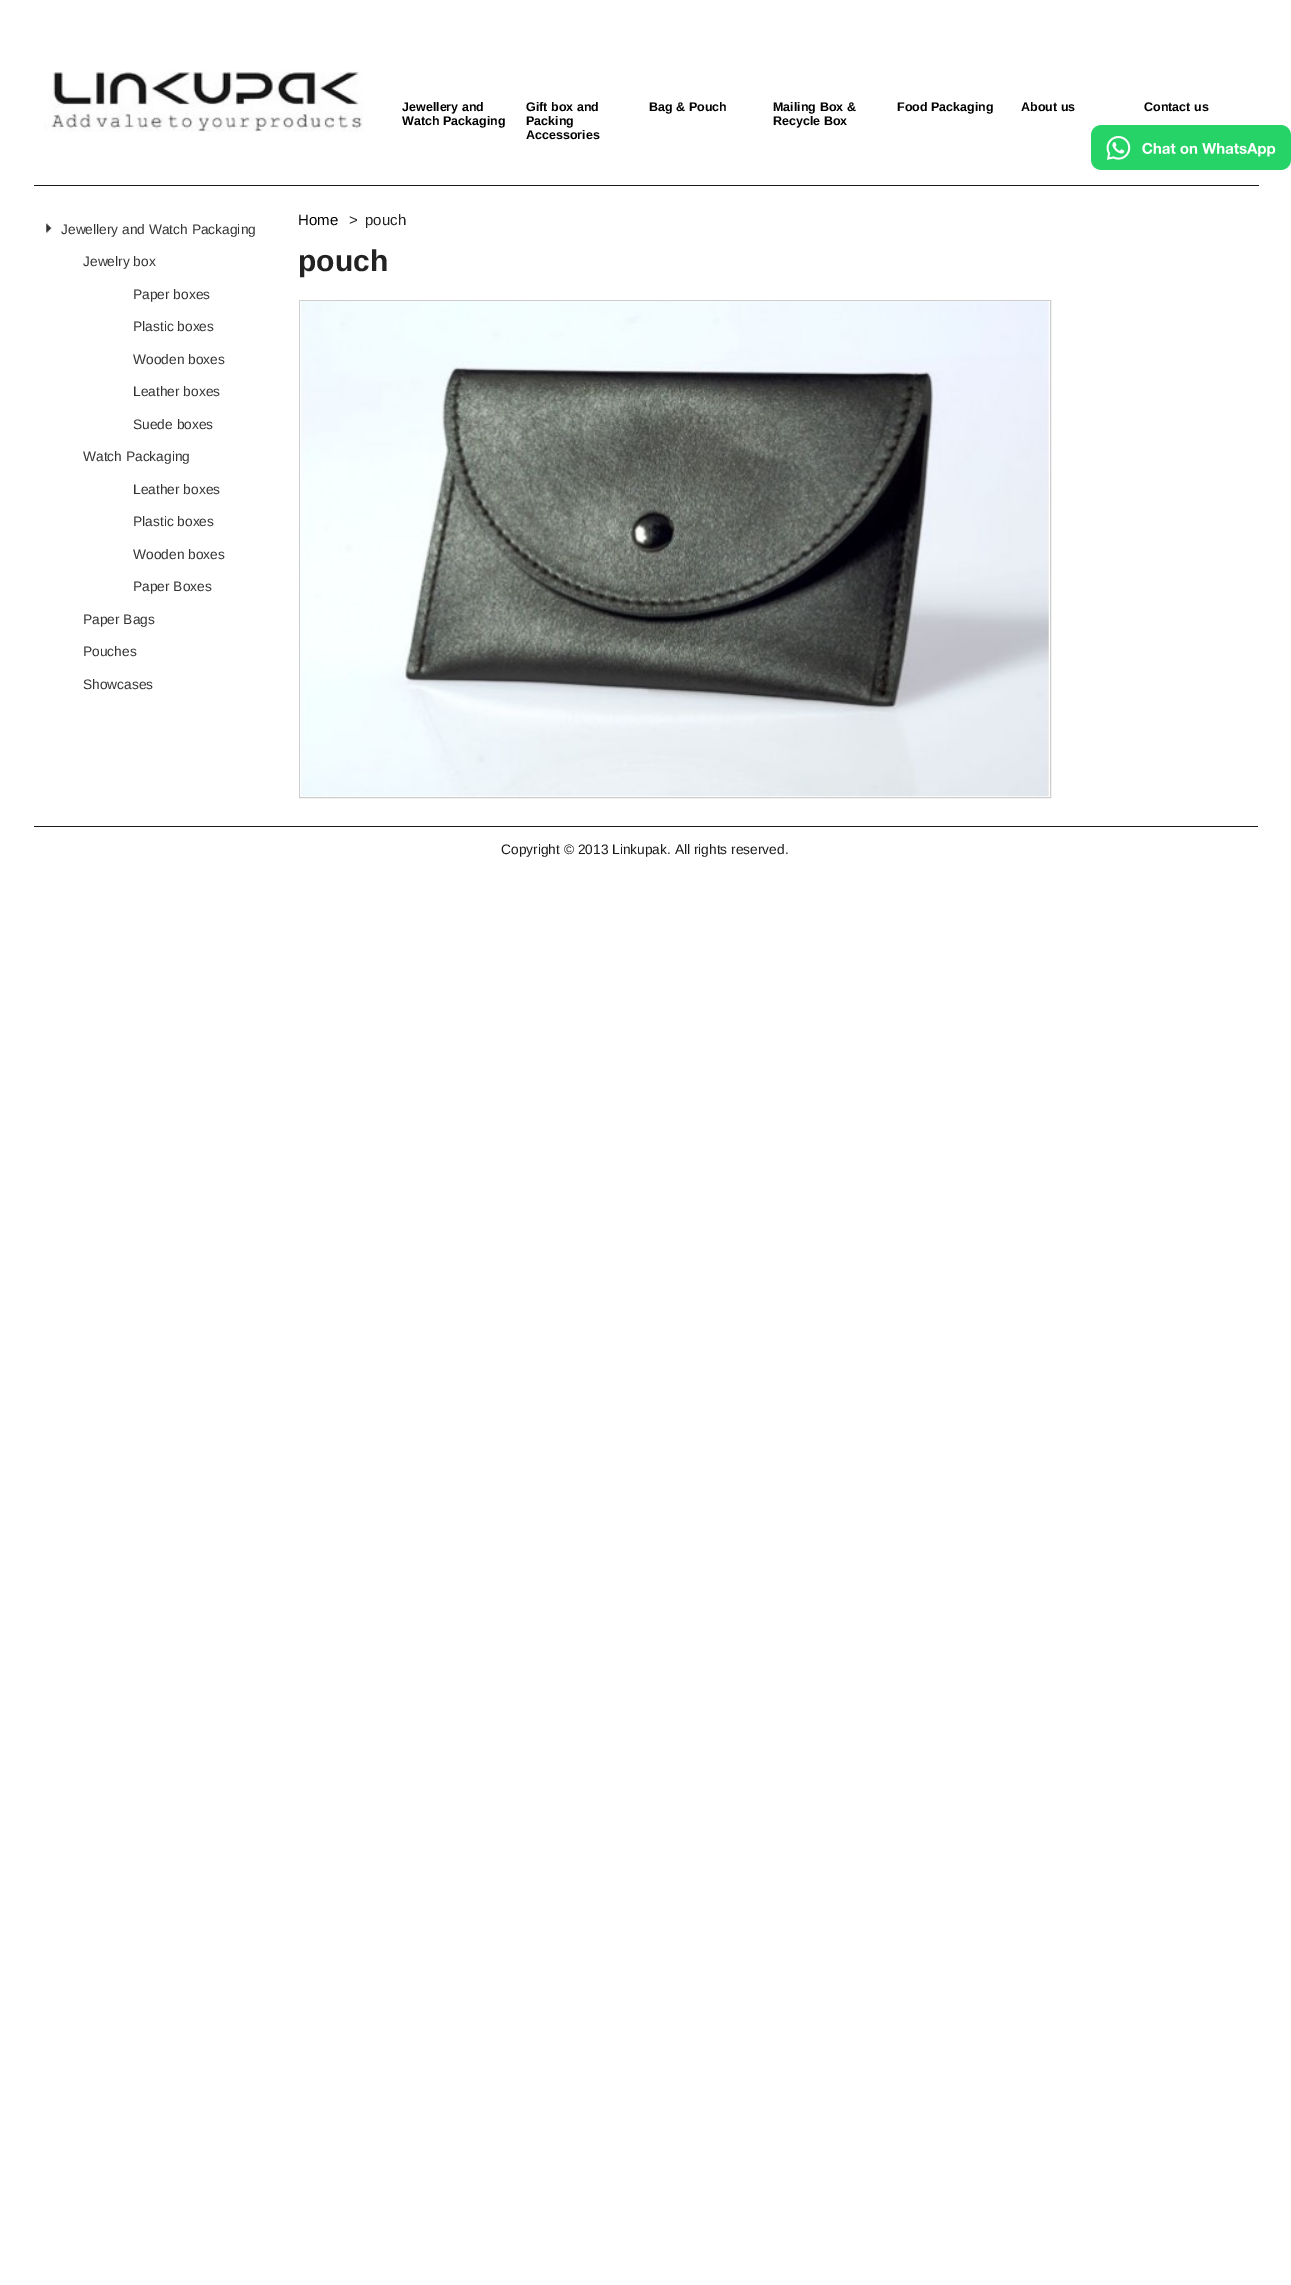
%!PS-Adobe-3.0
%%BoundingBox: 0 0 1291 2285
%%LanguageLevel: 3
%%Pages: 1
%%EndComments
%%BeginProlog
/fn { [ exch dup neg 0 0 3 -1 roll 0 0 ] selectfont } def
/tx { moveto show } def
/bx { rectfill } def
/im { 5 dict begin { /h /w /y /x /name } { exch def } forall
  gsave x y translate w h scale
  w h 8 [w 0 0 h 0 0] name (r) file false 3 colorimage grestore end } def
%%EndProlog
%%BeginSetup
<< /PageSize [1291 2285] >> setpagedevice
%%EndSetup
%%Page: 1 1
0 2285 translate 1 -1 scale
4 setmiterlimit
1 setgray
0 0 1291 2285 bx
0.102 setgray
34 185 1225 1 bx
(image0.raw) 44 71 320 61 im
/LiberationSans-Bold 12.5 fn
0 setgray
(Jewellery and) 402 111 tx
(Watch Packaging) 402 125 tx
(Gift box and) 526 111 tx
(Packing) 526 125 tx
(Accessories) 526 139 tx
(Bag & Pouch) 649 111 tx
(Mailing Box &) 773 111 tx
(Recycle Box) 773 125 tx
(Food Packaging) 897 111 tx
(About us) 1021 111 tx
(Contact us) 1144 111 tx
(image1.raw) 1091 125 200 45 im
(image2.raw) 46 223 6 10 im
/LiberationSans-Regular 13.75 fn
0.2 setgray
(Jewellery and Watch Packaging) 61 234 tx
(Jewelry box) 83 266 tx
(Paper boxes) 133 299 tx
(Plastic boxes) 133 331 tx
(Wooden boxes) 133 364 tx
(Leather boxes) 133 396 tx
(Suede boxes) 133 429 tx
(Watch Packaging) 83 461 tx
(Leather boxes) 133 494 tx
(Plastic boxes) 133 526 tx
(Wooden boxes) 133 559 tx
(Paper Boxes) 133 591 tx
(Paper Bags) 83 624 tx
(Pouches) 83 656 tx
(Showcases) 83 689 tx
/LiberationSans-Regular 15 fn
0 setgray
(Home) 298 225 tx
0.133 setgray
(>) 349 225 tx
(pouch) 365 225 tx
/LiberationSans-Bold 30 fn
(pouch) 298 271 tx
0.804 setgray
299.5 300.5 751 497 rectstroke
(image3.raw) 300 301 750 496 im
0.102 setgray
34 826 1224 1 bx
/LiberationSans-Regular 13.75 fn
(Copyright © 2013 Linkupak. All rights reserved.) 501 854 tx
showpage
%%EOF
